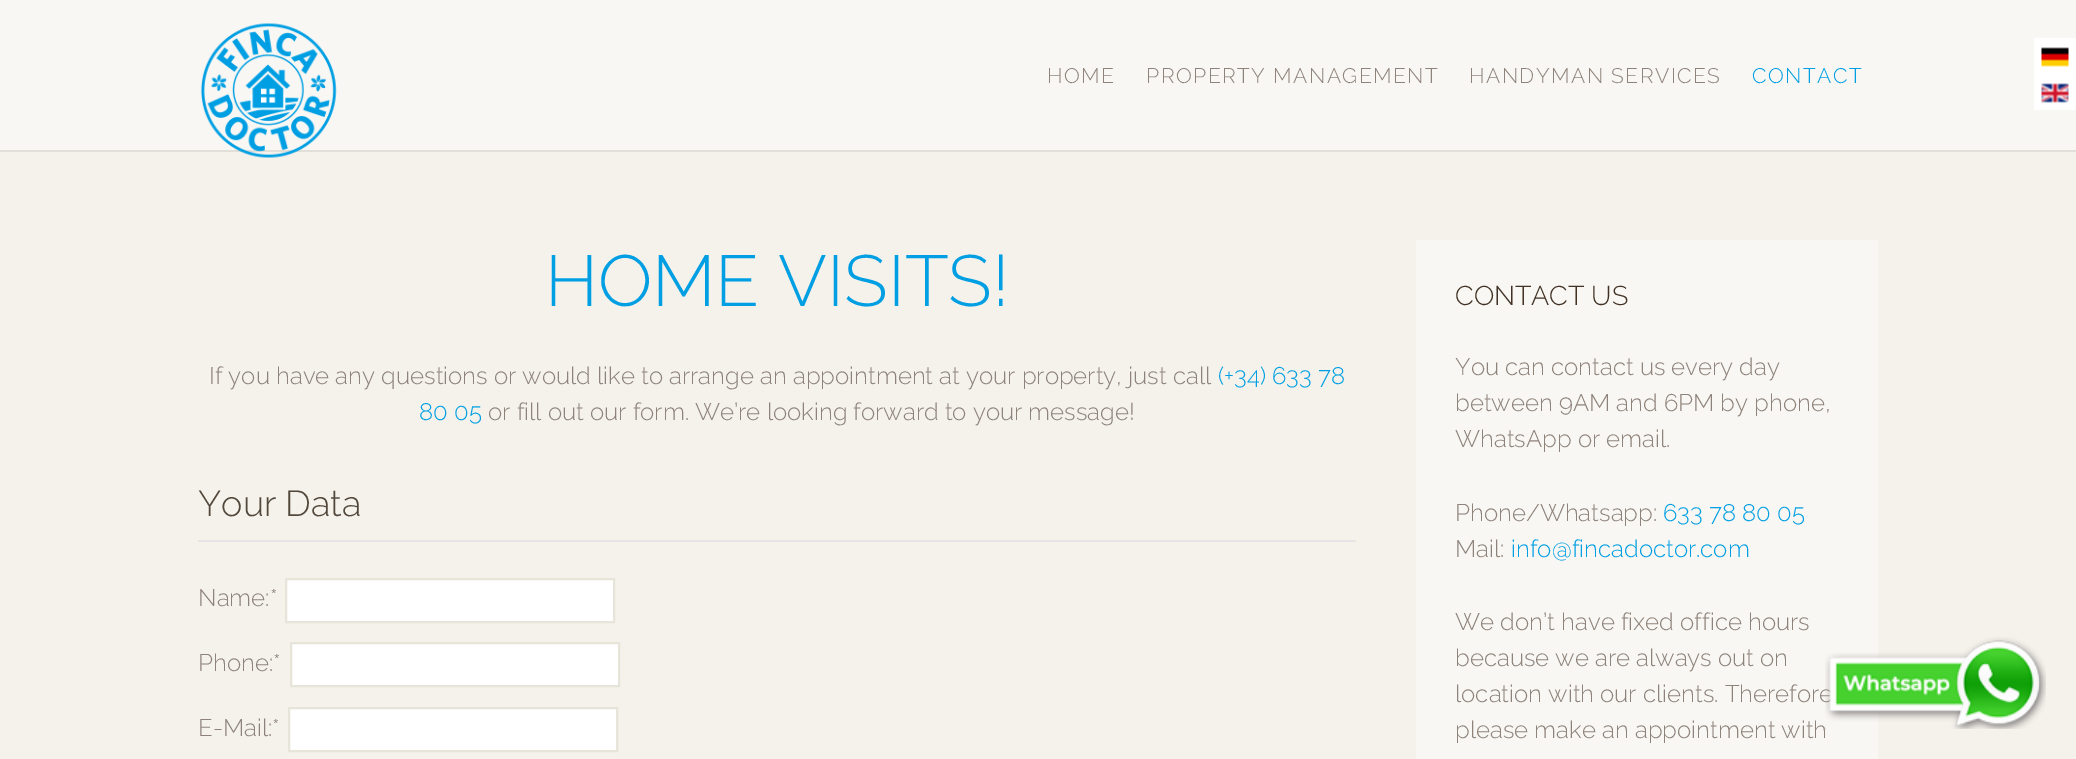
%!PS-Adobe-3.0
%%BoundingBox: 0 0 2076 759
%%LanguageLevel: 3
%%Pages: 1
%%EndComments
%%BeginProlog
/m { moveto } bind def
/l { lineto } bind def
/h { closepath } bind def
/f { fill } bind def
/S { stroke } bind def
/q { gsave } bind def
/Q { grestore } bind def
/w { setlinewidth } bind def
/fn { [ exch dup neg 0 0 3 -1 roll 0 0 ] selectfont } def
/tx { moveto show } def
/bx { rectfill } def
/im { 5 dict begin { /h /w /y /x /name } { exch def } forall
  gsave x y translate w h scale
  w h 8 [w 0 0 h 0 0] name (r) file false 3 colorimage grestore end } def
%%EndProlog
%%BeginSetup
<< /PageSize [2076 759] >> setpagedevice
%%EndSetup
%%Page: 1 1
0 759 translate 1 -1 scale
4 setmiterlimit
0.961 0.949 0.925 setrgbcolor
0 0 2076 759 bx
0.886 0.871 0.847 setrgbcolor
0 150 2076 2 bx
0.976 0.969 0.953 setrgbcolor
0 0 2076 150 bx
(image0.raw) 200 23 137 135 im
/Raleway-Light 21 fn
0.553 0.514 0.482 setrgbcolor
1047 83 m 1.5 0 (HOME) ashow
1146 83 m 1.5 0 (PROPERTY MANAGEMENT) ashow
1469 83 m 1.5 0 (HANDYMAN SERVICES) ashow
0 0.624 0.89 setrgbcolor
1752 83 m 1.5 0 (CONTACT) ashow
1 setgray
2034 38 42 72 bx
(image1.raw) 2041 47 28 20 im
(image2.raw) 2041 83 28 20 im
/Raleway-Light 72 fn
0 0.624 0.89 setrgbcolor
(HOME VISITS!) 545 306 tx
/Raleway-Light 24 fn
0.553 0.514 0.482 setrgbcolor
(If you have any questions or would like to arrange an appointment at your property, just call) 209 384 tx
0 0.624 0.89 setrgbcolor
(\(+34\) 633 78) 1218 384 tx
(80 05) 419 420 tx
0.553 0.514 0.482 setrgbcolor
(or fill out our form. We’re looking forward to your message!) 488 420 tx
0.898 setgray
198 540 1158 2 bx
/Raleway-Light 36 fn
0.322 0.278 0.231 setrgbcolor
(Your Data) 198 516 tx
/Raleway-Light 24 fn
0.553 0.514 0.482 setrgbcolor
(Name:*) 198 606 tx
1 setgray
286 579 m 614 579 l 614 622 l 286 622 l h q f Q
0.906 0.894 0.855 setrgbcolor
2 w
S
0.553 0.514 0.482 setrgbcolor
(Phone:*) 198 671 tx
1 setgray
291 643 m 619 643 l 619 686 l 291 686 l h q f Q
0.906 0.894 0.855 setrgbcolor
S
0.553 0.514 0.482 setrgbcolor
(E-Mail:*) 198 736 tx
1 setgray
289 708 m 617 708 l 617 751 l 289 751 l h q f Q
0.906 0.894 0.855 setrgbcolor
S
0.976 0.969 0.953 setrgbcolor
1416 240 462 519 bx
/Raleway-Light 27 fn
0.255 0.196 0.145 setrgbcolor
(CONTACT US) 1455 305 tx
/Raleway-Light 24 fn
0.553 0.514 0.482 setrgbcolor
(You can contact us every day) 1455 375 tx
(between 9AM and 6PM by phone,) 1455 411 tx
(WhatsApp or email.) 1455 447 tx
(Phone/Whatsapp:) 1455 521 tx
0 0.624 0.89 setrgbcolor
(633 78 80 05) 1663 521 tx
0.553 0.514 0.482 setrgbcolor
(Mail:) 1455 557 tx
0 0.624 0.89 setrgbcolor
(info@fincadoctor.com) 1511 557 tx
0.553 0.514 0.482 setrgbcolor
(We don’t have fixed office hours) 1455 630 tx
(because we are always out on) 1455 666 tx
(location with our clients. Therefore) 1455 702 tx
(please make an appointment with) 1455 738 tx
(image3.raw) 1825 637 221 92 im
showpage
%%EOF
